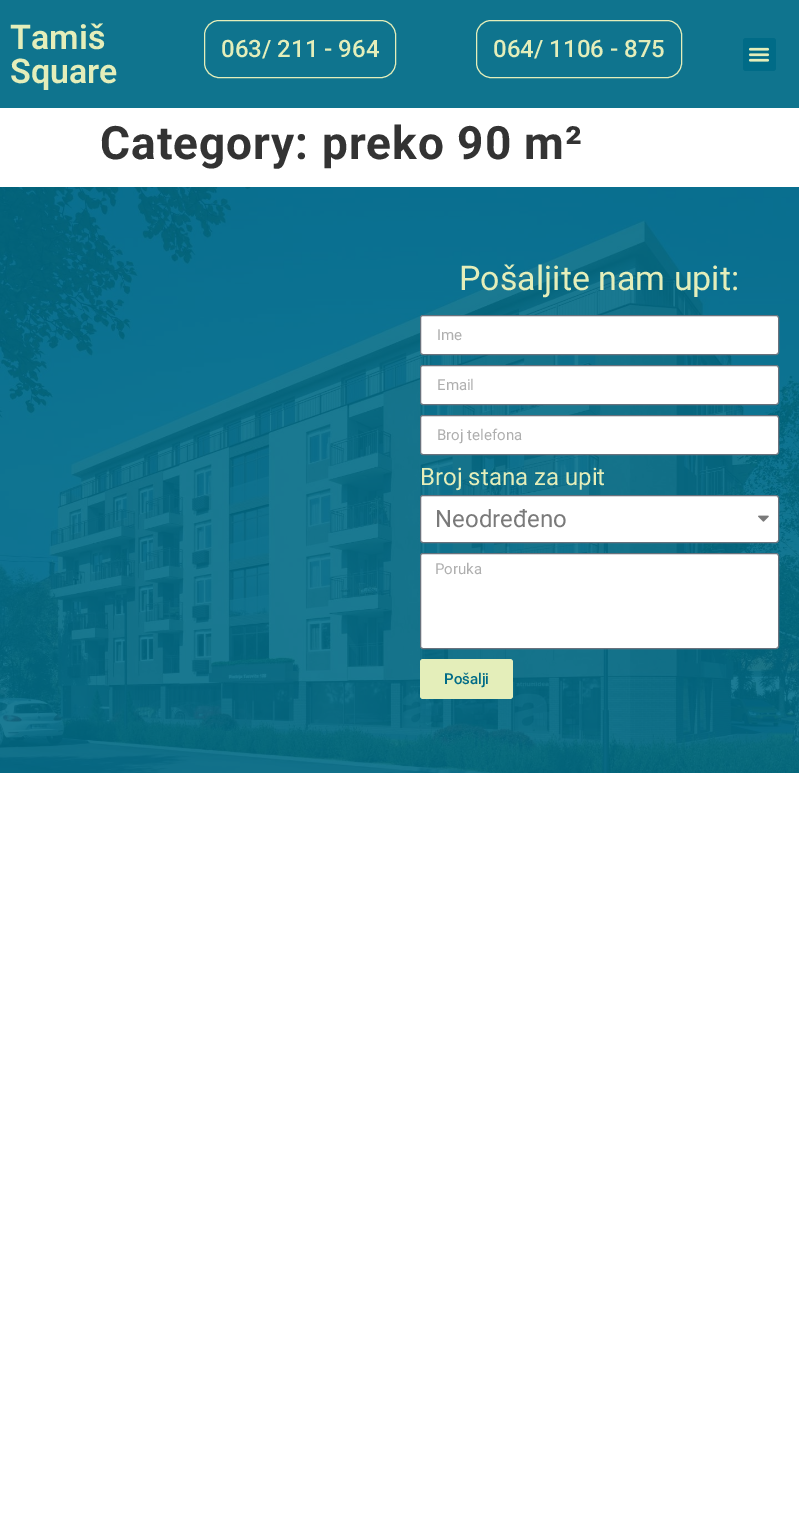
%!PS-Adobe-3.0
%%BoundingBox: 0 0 799 1514
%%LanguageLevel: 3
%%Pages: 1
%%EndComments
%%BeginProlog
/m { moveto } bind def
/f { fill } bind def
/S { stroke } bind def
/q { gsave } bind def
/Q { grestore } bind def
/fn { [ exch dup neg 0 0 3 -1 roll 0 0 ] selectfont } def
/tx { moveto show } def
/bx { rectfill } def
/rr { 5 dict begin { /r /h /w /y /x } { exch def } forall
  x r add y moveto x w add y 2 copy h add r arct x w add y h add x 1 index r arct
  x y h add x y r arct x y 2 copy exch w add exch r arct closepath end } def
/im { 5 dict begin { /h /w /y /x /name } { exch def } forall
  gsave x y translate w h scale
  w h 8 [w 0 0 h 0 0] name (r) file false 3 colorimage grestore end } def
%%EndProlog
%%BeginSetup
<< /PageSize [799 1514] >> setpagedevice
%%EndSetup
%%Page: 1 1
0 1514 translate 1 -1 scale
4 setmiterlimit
1 setgray
0 0 799 1514 bx
0.059 0.455 0.557 setrgbcolor
0 0 799 108 bx
/Roboto-SemiBold 34 fn
0.894 0.933 0.729 setrgbcolor
(Tamiš) 10 49 tx
(Square) 10 83 tx
204.5 20.5 191 57 14.5 rr S
/Roboto-Medium 24 fn
(063/ 211 - 964) 221 57 tx
476.5 20.5 205 57 14.5 rr S
(064/ 1106 - 875) 493 57 tx
0 0.42 0.529 setrgbcolor
743 38 33 33 3 rr f
(image0.raw) 748 47 22 15 im
/Roboto-Bold 46 fn
0.2 setgray
100 159 m 1 0 (Category: preko 90 m²) ashow
(image1.raw) 0 187 799 586 im
/Roboto-Regular 34 fn
0.894 0.933 0.729 setrgbcolor
(Pošaljite nam upit:) 459 290 tx
1 setgray
420.5 315.5 358 39 2.5 rr q f Q
0.412 0.447 0.49 setrgbcolor
S
/Roboto-Regular 15 fn
0.686 setgray
(Ime) 437 340 tx
1 setgray
420.5 365.5 358 39 2.5 rr q f Q
0.412 0.447 0.49 setrgbcolor
S
0.686 setgray
(Email) 437 390 tx
1 setgray
420.5 415.5 358 39 2.5 rr q f Q
0.412 0.447 0.49 setrgbcolor
S
0.686 setgray
(Broj telefona) 437 440 tx
/Roboto-Regular 24 fn
0.894 0.933 0.729 setrgbcolor
(Broj stana za upit) 420 485 tx
1 setgray
420.5 495.5 358 47 2.5 rr q f Q
0.412 0.447 0.49 setrgbcolor
S
0.478 setgray
(Neodređeno) 435 527 tx
(image2.raw) 758 515 11 7 im
1 setgray
420.5 553.5 358 95 2.5 rr q f Q
0.412 0.447 0.49 setrgbcolor
S
/Roboto-Regular 15 fn
0.686 setgray
(Poruka) 435 574 tx
0.894 0.933 0.729 setrgbcolor
420 659 93 40 3 rr f
/Roboto-Medium 15 fn
0 0.42 0.529 setrgbcolor
(Pošalji) 444 684 tx
showpage
%%EOF
